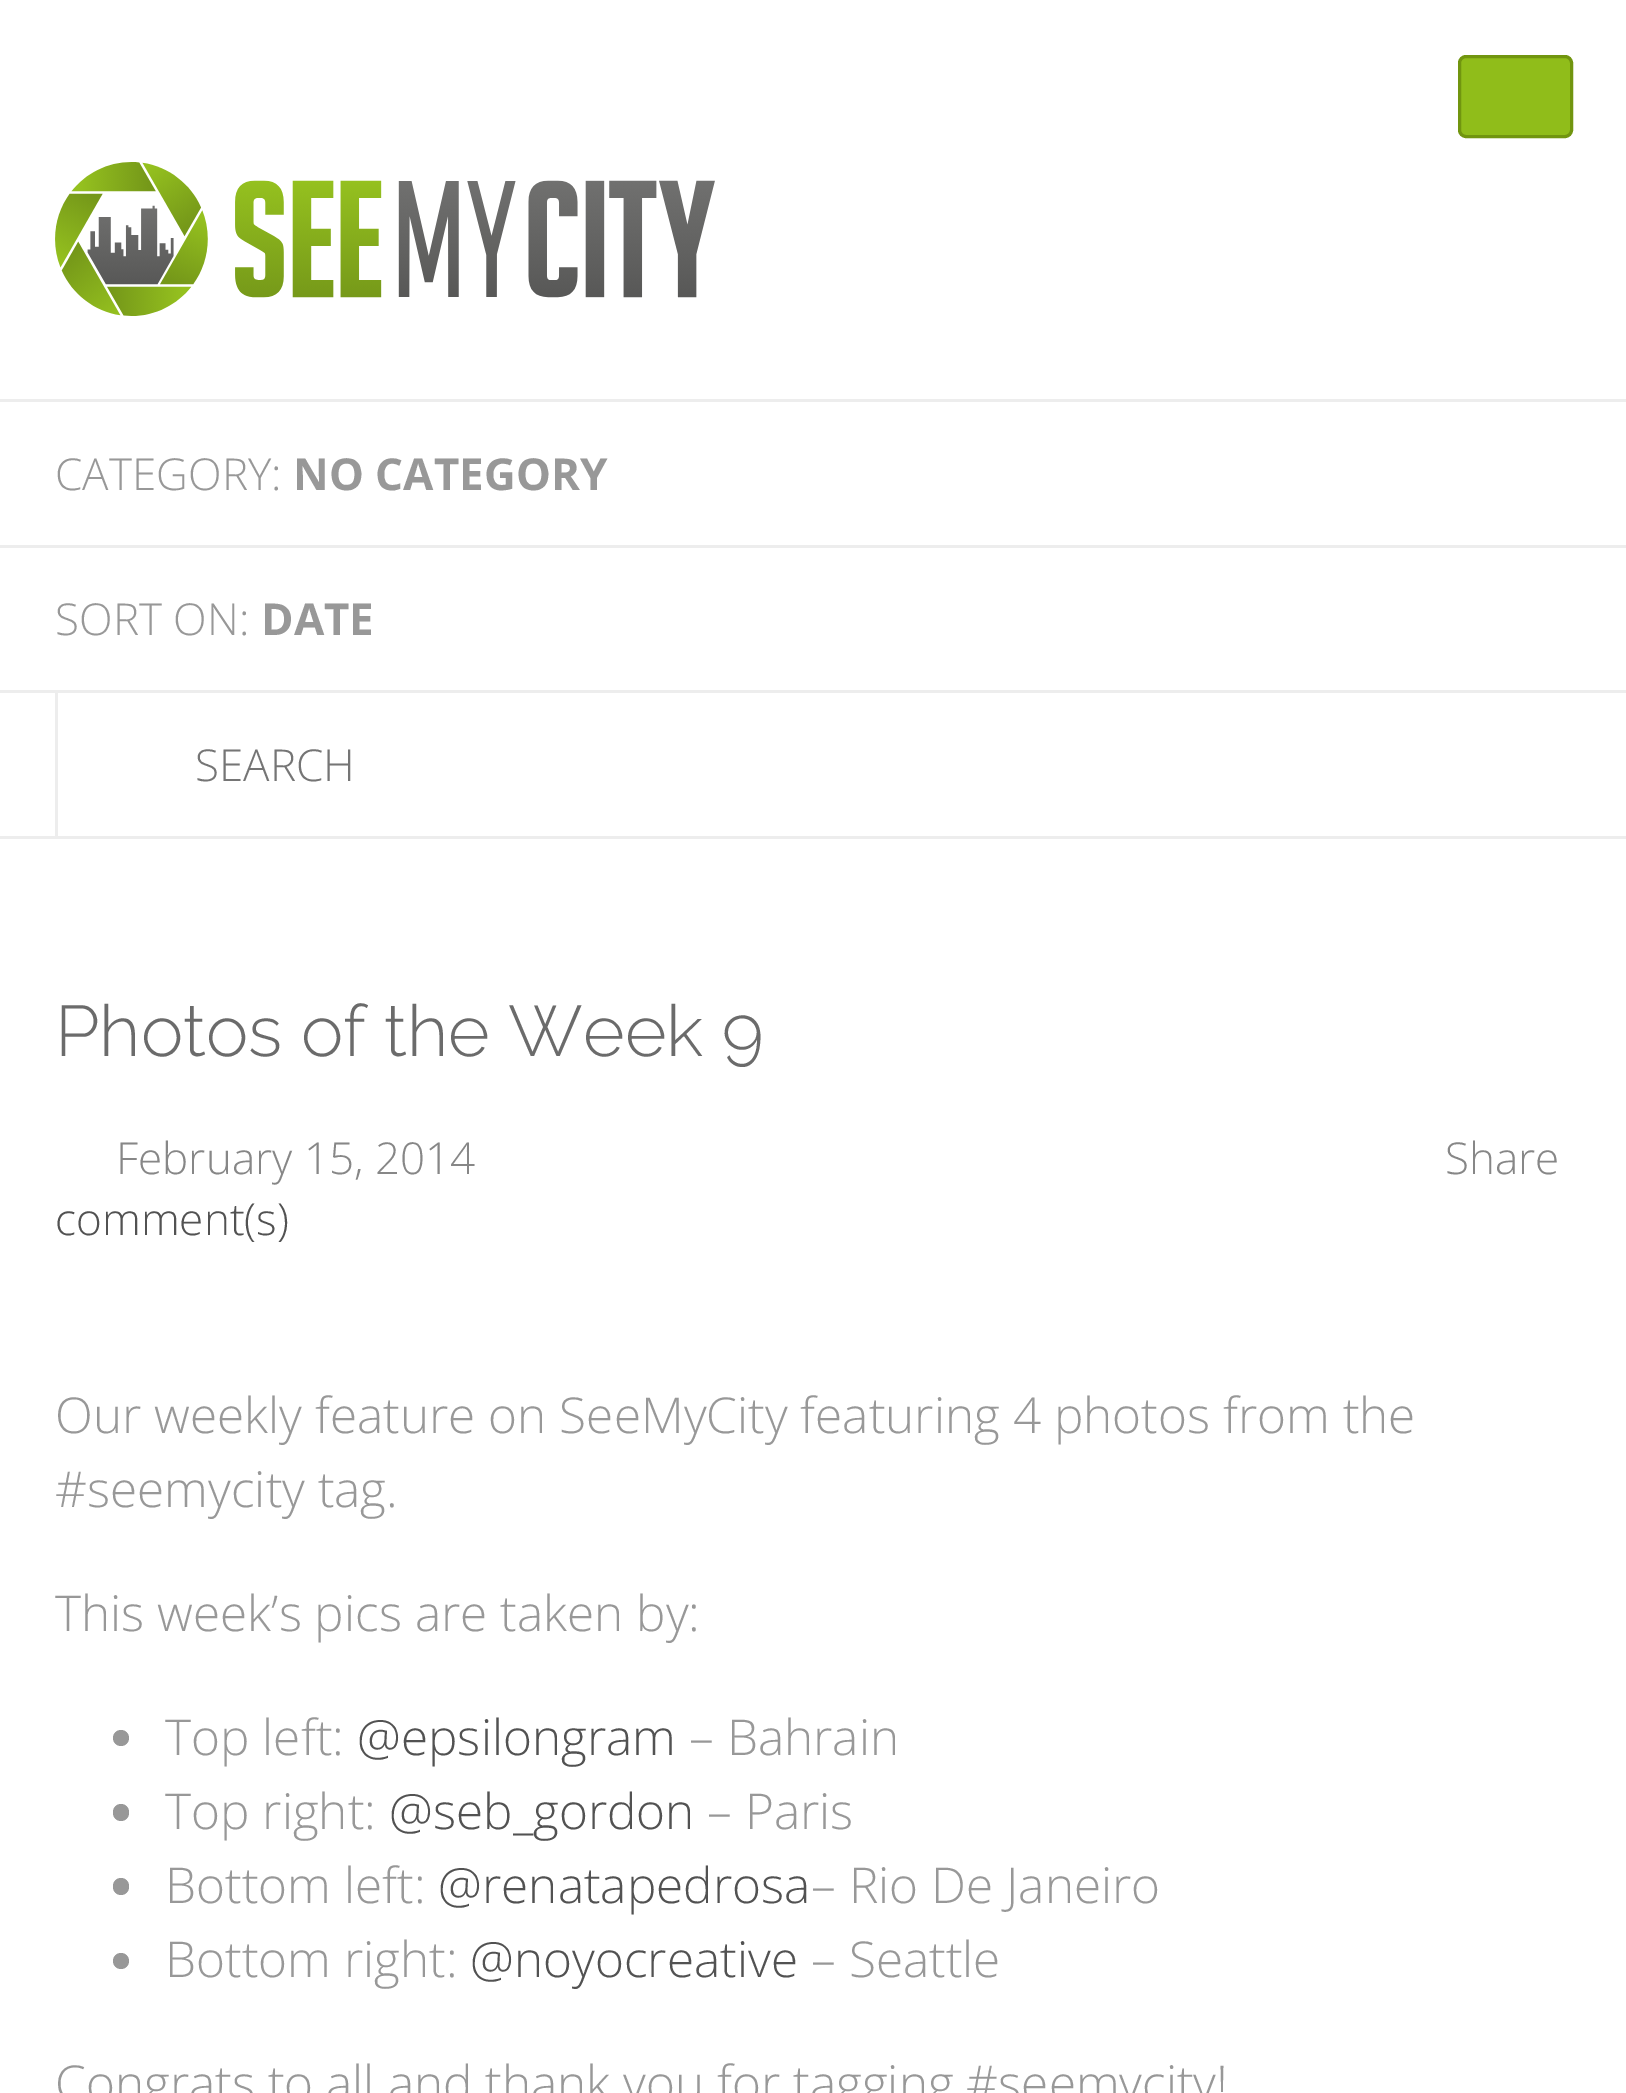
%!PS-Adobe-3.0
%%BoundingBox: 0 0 1626 2093
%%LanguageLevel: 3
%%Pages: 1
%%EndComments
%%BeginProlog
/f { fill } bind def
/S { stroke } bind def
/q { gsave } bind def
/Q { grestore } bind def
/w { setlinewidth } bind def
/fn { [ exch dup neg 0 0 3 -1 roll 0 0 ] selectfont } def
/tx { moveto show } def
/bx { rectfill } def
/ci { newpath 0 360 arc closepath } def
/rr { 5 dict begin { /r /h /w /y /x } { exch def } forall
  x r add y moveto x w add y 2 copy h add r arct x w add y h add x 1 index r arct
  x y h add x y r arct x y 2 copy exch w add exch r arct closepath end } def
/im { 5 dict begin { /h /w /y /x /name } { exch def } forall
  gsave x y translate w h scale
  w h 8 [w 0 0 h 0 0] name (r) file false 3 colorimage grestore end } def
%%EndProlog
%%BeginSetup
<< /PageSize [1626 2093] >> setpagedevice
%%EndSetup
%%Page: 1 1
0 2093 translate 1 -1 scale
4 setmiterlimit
1 setgray
0 0 1626 2093 bx
0.929 setgray
0 399 1626 3 bx
0.565 0.741 0.102 setrgbcolor
1459.5 56.5 112 80 6.5 rr q f Q
0.443 0.584 0.059 setrgbcolor
3 w
S
(image0.raw) 55 162 660 154 im
0.929 setgray
0 836 1626 3 bx
0 545 1626 3 bx
/OpenSans-Light 44 fn
0.596 setgray
(CATEGORY:) 55 490 tx
/OpenSans-Bold 44 fn
(NO CATEGORY) 293 490 tx
0.929 setgray
0 690 1626 3 bx
/OpenSans-Light 44 fn
0.596 setgray
(SORT ON:) 55 635 tx
/OpenSans-Bold 44 fn
(DATE) 261 635 tx
0.929 setgray
55 693 3 143 bx
/OpenSans-Light 44 fn
0.459 setgray
(SEARCH) 195 781 tx
/Raleway-Light 71.5 fn
0.42 setgray
(Photos of the Week 9) 55 1056 tx
/OpenSans-Light 44 fn
0.529 setgray
(February 15, 2014) 116 1174 tx
(Share) 1445 1174 tx
0.322 setgray
(comment\(s\)) 55 1235 tx
/OpenSans-Light 49.5 fn
0.596 setgray
(Our weekly feature on SeeMyCity featuring 4 photos from the) 55 1433 tx
(#seemycity tag.) 55 1507 tx
(This week’s pics are taken by:) 55 1631 tx
121 1738 8 ci f
(Top left:) 165 1755 tx
0.322 setgray
(@epsilongram) 357 1755 tx
0.596 setgray
(– Bahrain) 689 1755 tx
113 1804 16 17 8 rr f
(Top right:) 165 1829 tx
0.322 setgray
(@seb_gordon) 389 1829 tx
0.596 setgray
(– Paris) 707 1829 tx
113 1878 16 17 8 rr f
(Bottom left:) 165 1903 tx
0.322 setgray
(@renatapedrosa) 438 1903 tx
0.596 setgray
(– Rio De Janeiro) 811 1903 tx
121 1961 8 ci f
(Bottom right:) 165 1977 tx
0.322 setgray
(@noyocreative) 470 1977 tx
0.596 setgray
(– Seattle) 811 1977 tx
(Congrats to all and thank you for tagging #seemycity!) 55 2101 tx
showpage
%%EOF
